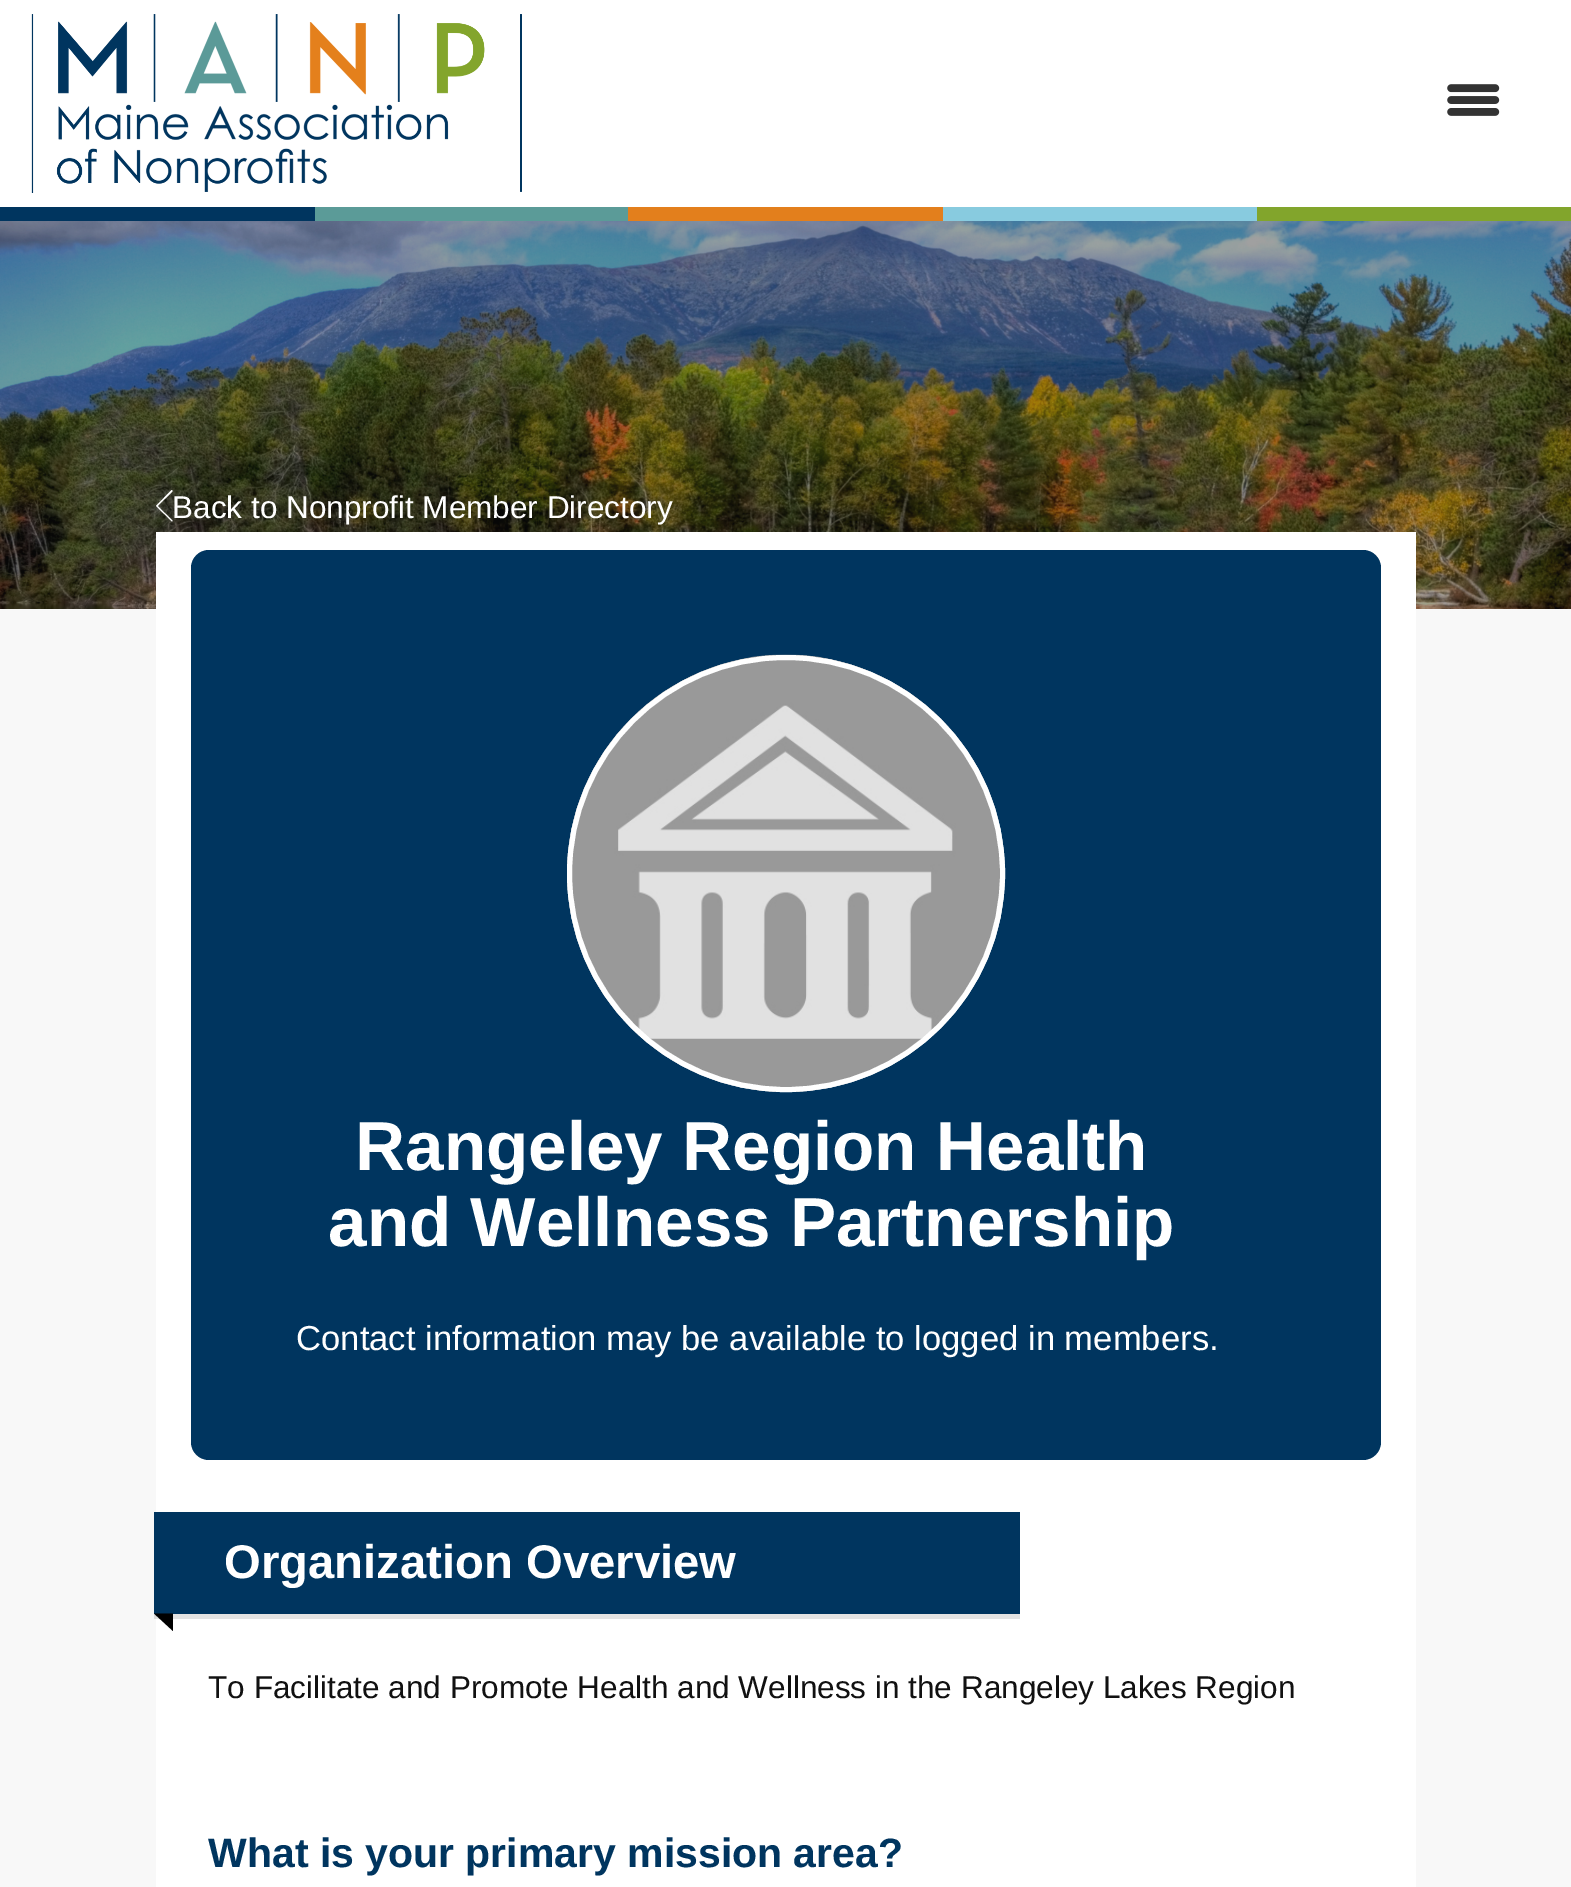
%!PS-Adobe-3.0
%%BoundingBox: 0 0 1571 1887
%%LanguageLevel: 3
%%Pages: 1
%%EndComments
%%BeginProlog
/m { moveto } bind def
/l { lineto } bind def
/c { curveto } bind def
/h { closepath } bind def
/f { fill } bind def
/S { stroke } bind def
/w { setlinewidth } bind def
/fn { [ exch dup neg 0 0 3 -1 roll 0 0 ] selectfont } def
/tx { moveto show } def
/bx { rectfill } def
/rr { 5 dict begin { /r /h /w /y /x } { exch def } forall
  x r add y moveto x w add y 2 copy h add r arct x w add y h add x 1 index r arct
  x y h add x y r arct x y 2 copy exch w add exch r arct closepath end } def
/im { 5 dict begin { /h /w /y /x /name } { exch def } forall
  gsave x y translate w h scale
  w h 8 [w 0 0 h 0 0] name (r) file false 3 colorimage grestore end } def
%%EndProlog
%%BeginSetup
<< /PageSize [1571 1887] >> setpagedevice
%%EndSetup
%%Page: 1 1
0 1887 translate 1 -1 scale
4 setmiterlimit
0.973 setgray
0 0 1571 1887 bx
0.867 setgray
154 1614 2 5 bx
1 setgray
0 0 1571 207 bx
(image0.raw) 31 14 491 179 im
(image1.raw) 1447 84 53 32 im
0 0.208 0.373 setrgbcolor
0 207 315 14 bx
0.357 0.608 0.596 setrgbcolor
315 207 313 14 bx
0.89 0.498 0.11 setrgbcolor
628 207 315 14 bx
0.533 0.796 0.875 setrgbcolor
943 207 314 14 bx
0.51 0.647 0.173 setrgbcolor
1257 207 314 14 bx
(image2.raw) 0 221 1571 388 im
1 setgray
172 521.5 m 156 506 l 171.5 490 l 172.5 490 172.5 491 172.5 491.5 c 157.5 506 l 172.5 520.5 l 172.5 521 172.5 521.5 172 521.5 c h f
/LiberationSans-Regular 31.5 fn
(Back to Nonprofit Member Directory) 172 518 tx
156 532 1260 1355 bx
0.89 setgray
156 1614 864 5 bx
0 0.208 0.373 setrgbcolor
191 550 1190 910 18 rr f
(image3.raw) 567 654 438 438 im
1 setgray
5 w
569.5 657.5 433 432 216 rr S
/LiberationSans-Bold 69.25 fn
(Rangeley Region Health) 355 1170 tx
(and Wellness Partnership) 328 1246 tx
/LiberationSans-Regular 34.65 fn
(Contact information may be available to logged in members.) 296 1350 tx
0 0.208 0.373 setrgbcolor
154 1512 866 102 bx
/LiberationSans-Bold 47.25 fn
1 setgray
(Organization Overview) 224 1578 tx
0 setgray
154 1613.5 m 173 1613.5 l 173 1631 l h f
/LiberationSans-Regular 31.5 fn
0.067 setgray
(To Facilitate and Promote Health and Wellness in the Rangeley Lakes Region) 208 1698 tx
/LiberationSans-Bold 41 fn
0 0.208 0.373 setrgbcolor
(What is your primary mission area?) 208 1867 tx
showpage
%%EOF
